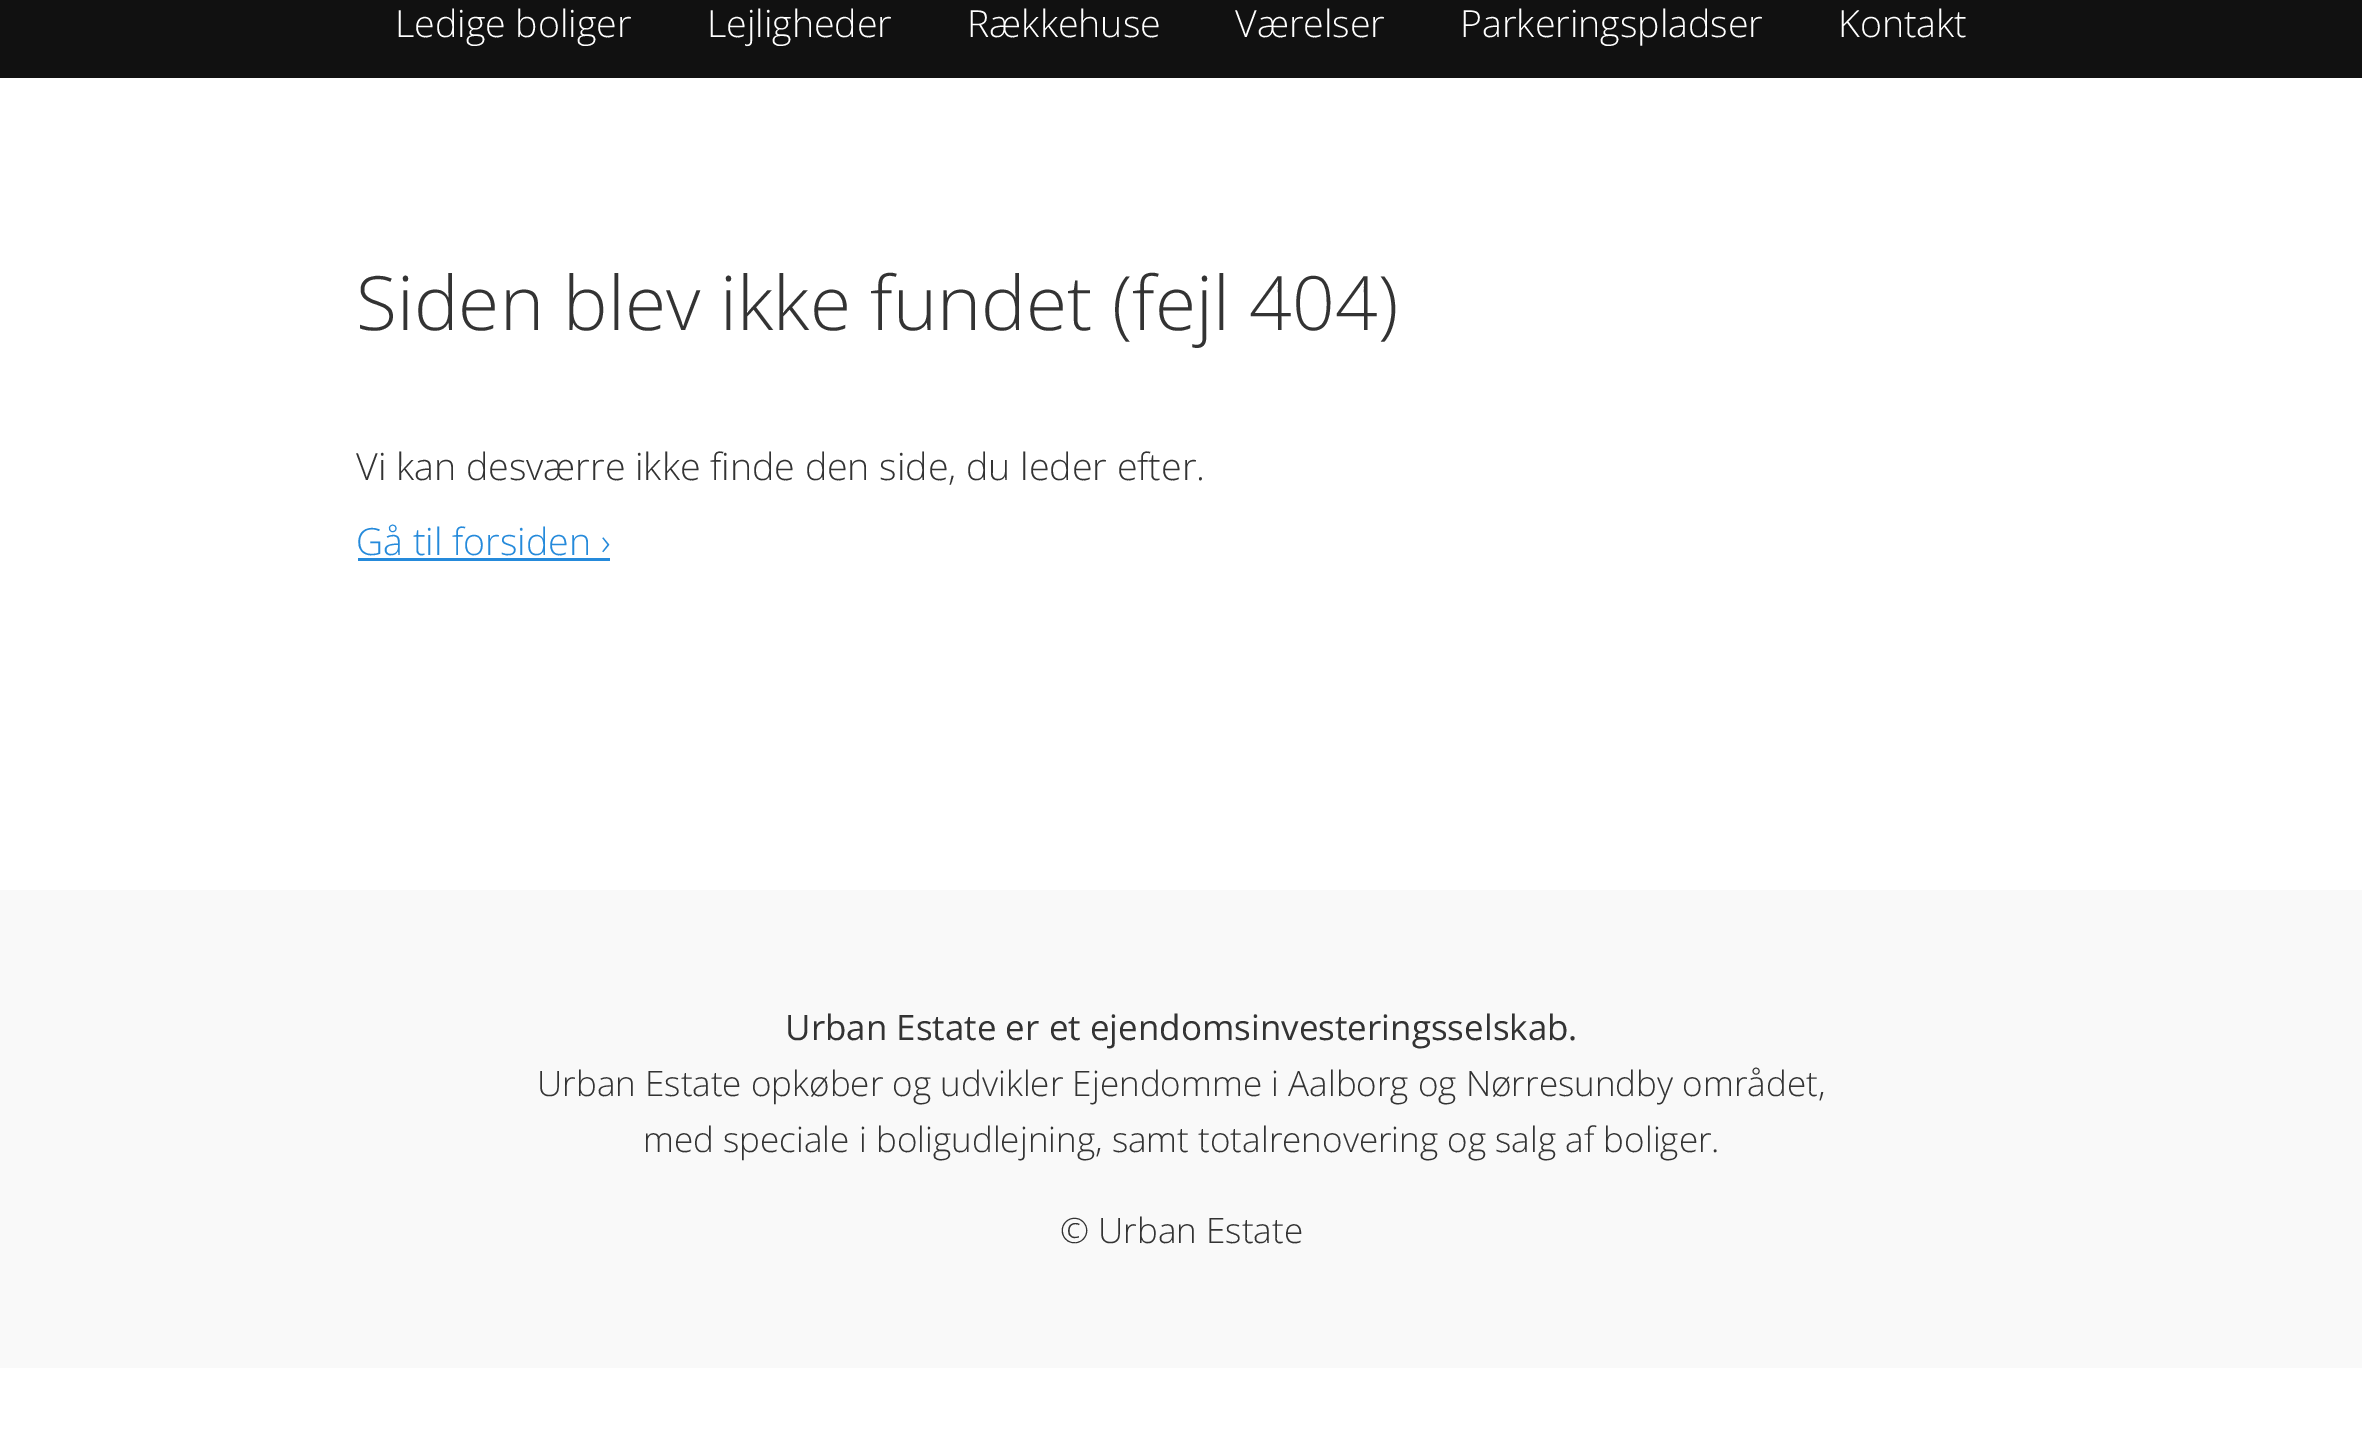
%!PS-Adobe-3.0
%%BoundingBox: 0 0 2362 1454
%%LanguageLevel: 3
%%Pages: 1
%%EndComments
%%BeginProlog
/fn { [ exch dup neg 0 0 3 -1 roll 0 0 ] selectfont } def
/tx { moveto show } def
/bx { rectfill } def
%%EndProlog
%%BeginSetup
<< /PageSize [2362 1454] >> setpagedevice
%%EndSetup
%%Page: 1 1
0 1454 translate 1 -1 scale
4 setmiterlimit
1 setgray
0 0 2362 1454 bx
0.067 setgray
0 0 2362 78 bx
/OpenSans-Light 37.5 fn
1 setgray
(Ledige boliger) 395 37 tx
(Lejligheder) 707 37 tx
(Rækkehuse) 967 37 tx
(Værelser) 1235 37 tx
(Parkeringspladser) 1460 37 tx
(Kontakt) 1838 37 tx
/OpenSans-Light 75 fn
0.2 setgray
(Siden blev ikke fundet \(fejl 404\)) 356 330 tx
/OpenSans-Light 37.5 fn
(Vi kan desværre ikke finde den side, du leder efter.) 356 480 tx
0.145 0.541 0.859 setrgbcolor
(Gå til forsiden ›) 356 555 tx
358 558 252 3 bx
0.976 setgray
0 890 2362 478 bx
/OpenSans-Regular 35 fn
0.2 setgray
(Urban Estate er et ejendomsinvesteringsselskab.) 785 1040 tx
/OpenSans-Light 35 fn
(Urban Estate opkøber og udvikler Ejendomme i Aalborg og Nørresundby området,) 537 1096 tx
(med speciale i boligudlejning, samt totalrenovering og salg af boliger.) 643 1152 tx
(© Urban Estate) 1060 1243 tx
showpage
%%EOF
